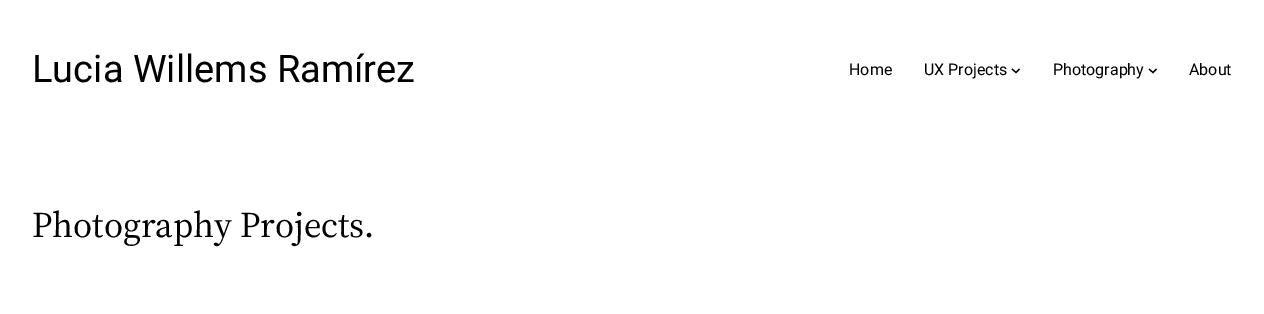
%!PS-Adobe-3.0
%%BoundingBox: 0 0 1264 314
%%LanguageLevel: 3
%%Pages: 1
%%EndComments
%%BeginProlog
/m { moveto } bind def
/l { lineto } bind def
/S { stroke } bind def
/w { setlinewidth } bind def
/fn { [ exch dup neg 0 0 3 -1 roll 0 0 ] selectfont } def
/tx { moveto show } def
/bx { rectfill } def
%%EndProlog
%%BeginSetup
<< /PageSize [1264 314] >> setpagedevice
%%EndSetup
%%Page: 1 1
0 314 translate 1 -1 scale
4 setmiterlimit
1 setgray
0 0 1264 314 bx
/Roboto-Regular 38 fn
0 setgray
(Lucia Willems Ramírez) 32 82 tx
/Roboto-Regular 16 fn
(Home) 849 75 tx
(UX Projects) 924 75 tx
1.2 w
1012 69 m 1016 72.5 l 1019.5 69 l S
(Photography) 1053 75 tx
1149 69 m 1153 72.5 l 1156.5 69 l S
(About) 1189 75 tx
/SourceSerif4-Regular 36 fn
(Photography Projects.) 32 237 tx
showpage
%%EOF
